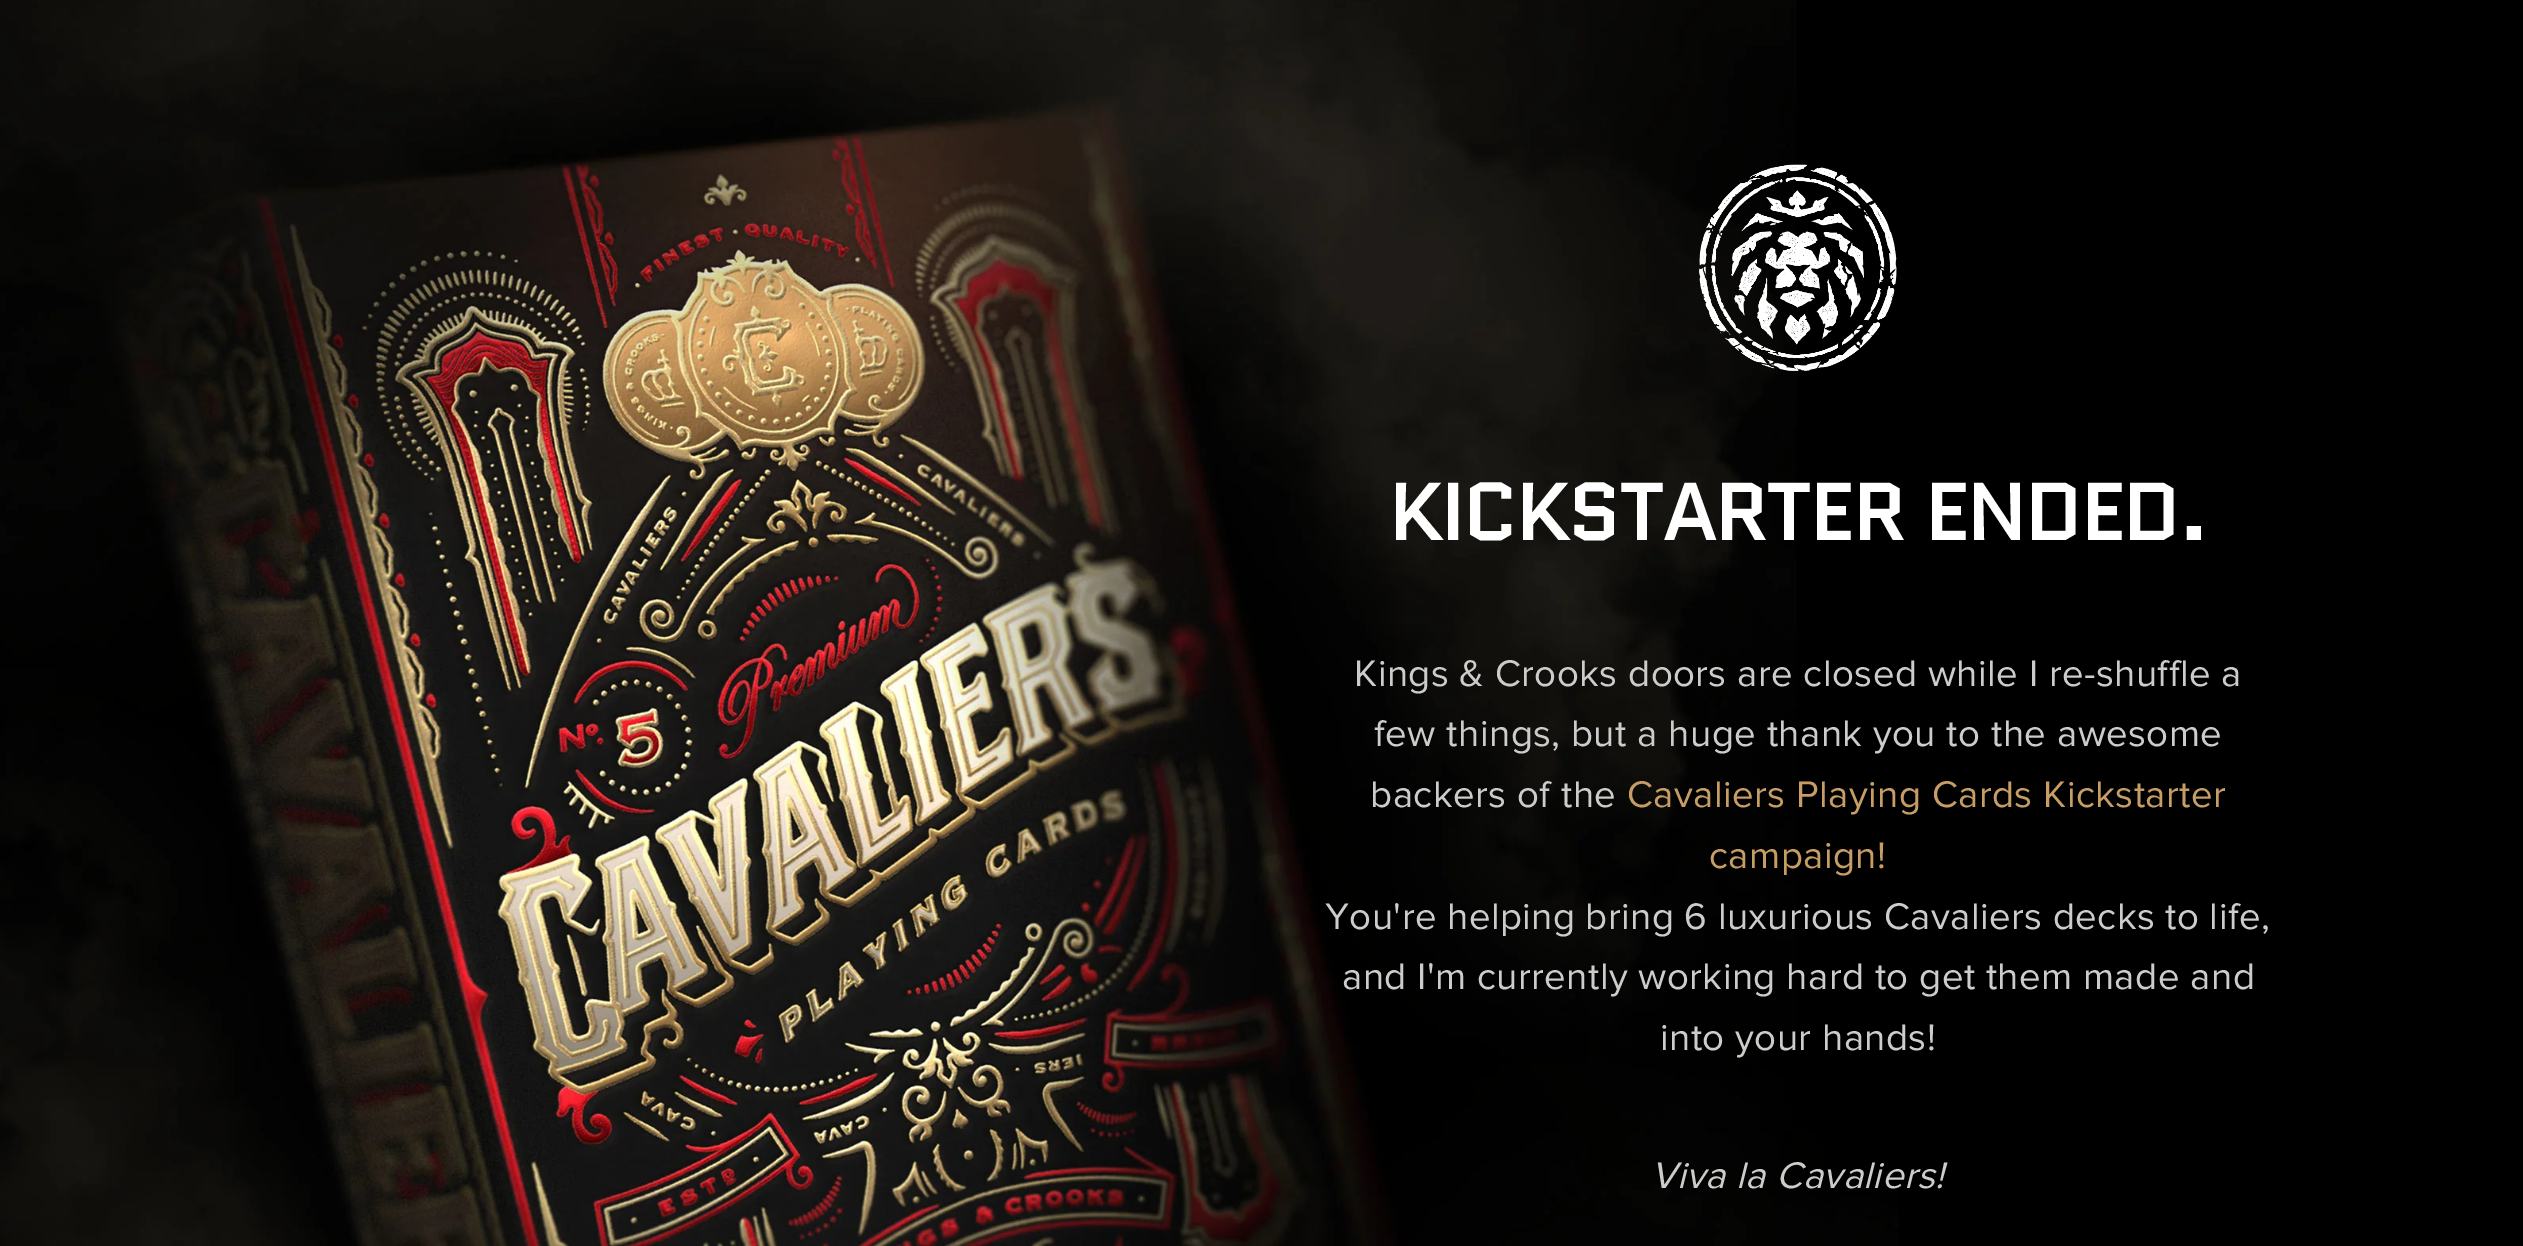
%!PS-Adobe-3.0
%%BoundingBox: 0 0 2523 1246
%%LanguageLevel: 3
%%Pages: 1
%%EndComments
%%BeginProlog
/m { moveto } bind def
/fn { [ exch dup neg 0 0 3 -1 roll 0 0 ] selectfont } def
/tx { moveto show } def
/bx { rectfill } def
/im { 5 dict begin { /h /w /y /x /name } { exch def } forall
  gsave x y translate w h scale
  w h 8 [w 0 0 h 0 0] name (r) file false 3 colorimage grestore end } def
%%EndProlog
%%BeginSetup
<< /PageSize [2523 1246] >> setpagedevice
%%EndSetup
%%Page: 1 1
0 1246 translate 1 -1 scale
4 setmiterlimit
0 setgray
0 0 2523 1246 bx
(image0.raw) 0 0 1899 1246 im
(image1.raw) 1699 164 198 207 im
/Quantico-Bold 78.75 fn
1 setgray
(KICKSTARTER ENDED.) 1389 540 tx
/ProximaNova-Regular 38.4 fn
0.8 setgray
1354 686 m 0.45 0 (Kings & Crooks doors are closed while I re-shuffle a) ashow
1374 746 m 0.45 0 (few things, but a huge thank you to the awesome) ashow
1370 807 m 0.45 0 (backers of the) ashow
0.776 0.616 0.396 setrgbcolor
1627 807 m 0.45 0 (Cavaliers Playing Cards Kickstarter) ashow
1709 868 m 0.45 0 (campaign!) ashow
0.8 setgray
1325 929 m -0.25 0 32 0.45 0 (You're helping bring 6 luxurious Cavaliers decks to life,) awidthshow
1342 989 m 0.45 0 (and I'm currently working hard to get them made and) ashow
1660 1050 m 0.45 0 (into your hands!) ashow
/ProximaNova-Italic 38.4 fn
1651 1188 m 0.45 0 (Viva la Cavaliers!) ashow
showpage
%%EOF
